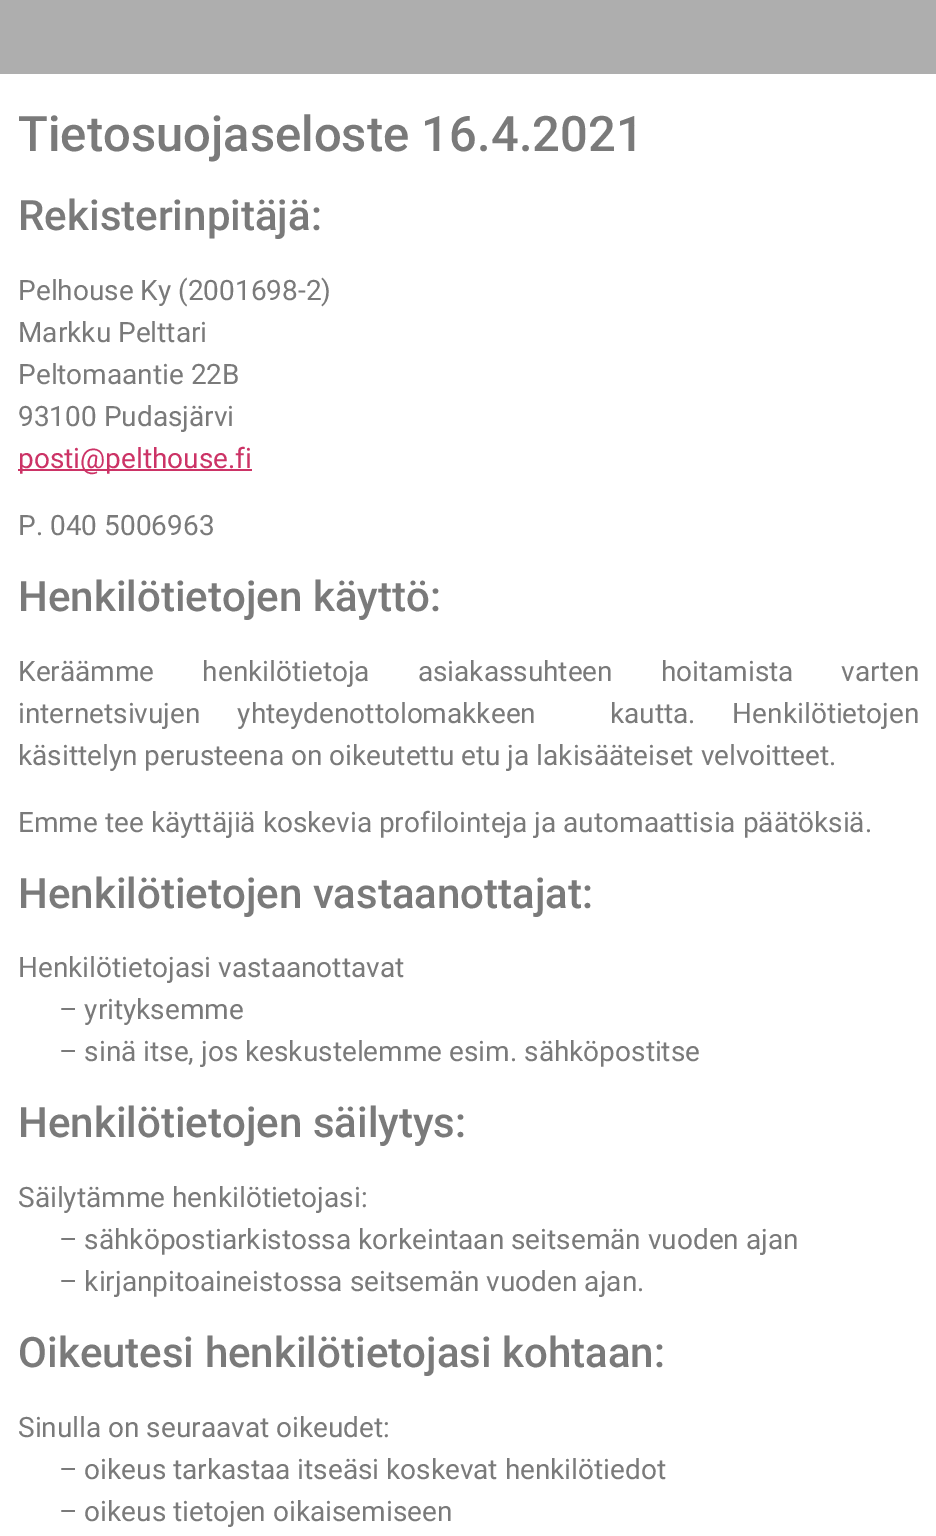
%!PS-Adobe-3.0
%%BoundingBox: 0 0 936 1536
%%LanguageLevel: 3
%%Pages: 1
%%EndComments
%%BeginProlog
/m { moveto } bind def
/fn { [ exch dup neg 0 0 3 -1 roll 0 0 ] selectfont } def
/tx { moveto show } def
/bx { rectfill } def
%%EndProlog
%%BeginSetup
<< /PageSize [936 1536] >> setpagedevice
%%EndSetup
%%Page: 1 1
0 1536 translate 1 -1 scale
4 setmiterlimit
1 setgray
0 0 936 1536 bx
0.682 setgray
0 0 936 74 bx
/Roboto-Medium 49 fn
0.478 setgray
(Tietosuojaseloste 16.4.2021) 18 151 tx
/Roboto-Medium 42 fn
(Rekisterinpitäjä:) 18 230 tx
/Roboto-Regular 28 fn
(Pelhouse Ky \(2001698-2\)) 18 300 tx
(Markku Pelttari) 18 342 tx
(Peltomaantie 22B) 18 384 tx
(93100 Pudasjärvi) 18 426 tx
0.8 0.2 0.4 setrgbcolor
18 469 234 2 bx
(posti@pelthouse.fi) 18 468 tx
0.478 setgray
(P. 040 5006963) 18 535 tx
/Roboto-Medium 42 fn
(Henkilötietojen käyttö:) 18 611 tx
/Roboto-Regular 28 fn
18 681 m 41 0 32 (Keräämme henkilötietoja asiakassuhteen hoitamista varten) widthshow
18 723 m 30 0 32 (internetsivujen yhteydenottolomakkeen  kautta. Henkilötietojen) widthshow
(käsittelyn perusteena on oikeutettu etu ja lakisääteiset velvoitteet.) 18 765 tx
(Emme tee käyttäjiä koskevia profilointeja ja automaattisia päätöksiä.) 18 832 tx
/Roboto-Medium 42 fn
(Henkilötietojen vastaanottajat:) 18 908 tx
/Roboto-Regular 28 fn
(Henkilötietojasi vastaanottavat) 18 977 tx
(– yrityksemme) 59 1019 tx
(– sinä itse, jos keskustelemme esim. sähköpostitse) 59 1061 tx
/Roboto-Medium 42 fn
(Henkilötietojen säilytys:) 18 1137 tx
/Roboto-Regular 28 fn
(Säilytämme henkilötietojasi:) 18 1207 tx
(– sähköpostiarkistossa korkeintaan seitsemän vuoden ajan) 59 1249 tx
(– kirjanpitoaineistossa seitsemän vuoden ajan.) 59 1291 tx
/Roboto-Medium 42 fn
(Oikeutesi henkilötietojasi kohtaan:) 18 1367 tx
/Roboto-Regular 28 fn
(Sinulla on seuraavat oikeudet:) 18 1437 tx
(– oikeus tarkastaa itseäsi koskevat henkilötiedot) 59 1479 tx
(– oikeus tietojen oikaisemiseen) 59 1521 tx
showpage
%%EOF
